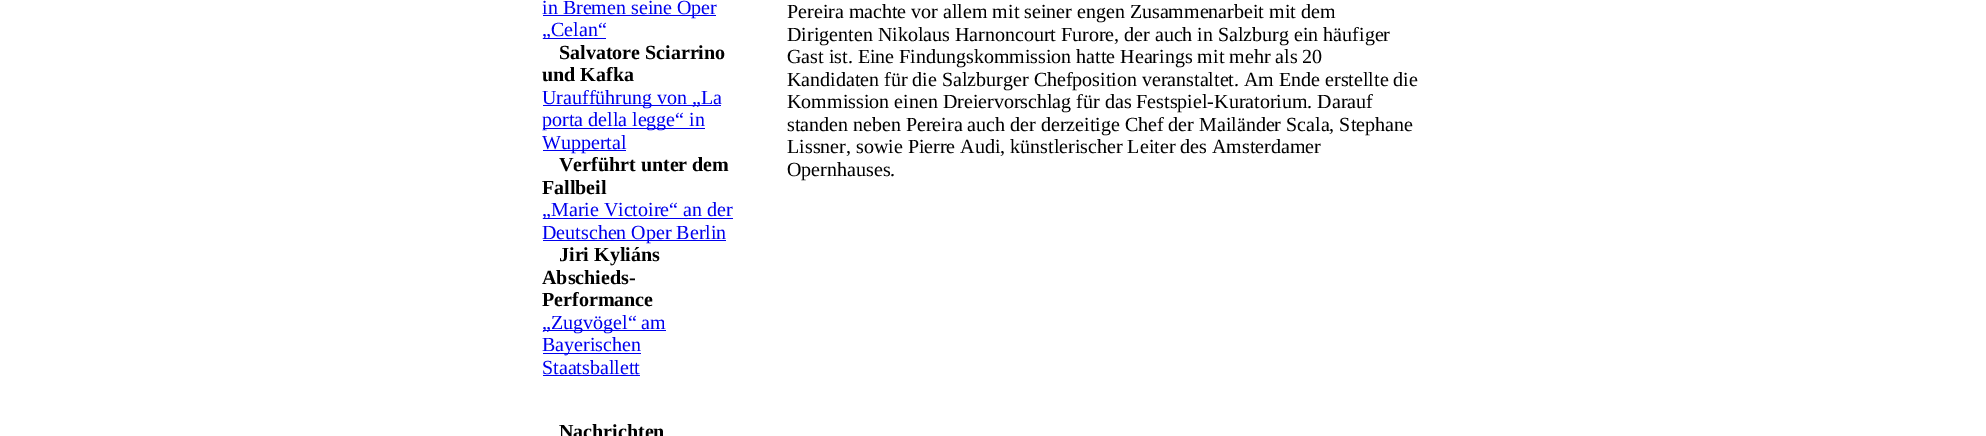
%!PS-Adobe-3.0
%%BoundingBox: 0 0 1986 436
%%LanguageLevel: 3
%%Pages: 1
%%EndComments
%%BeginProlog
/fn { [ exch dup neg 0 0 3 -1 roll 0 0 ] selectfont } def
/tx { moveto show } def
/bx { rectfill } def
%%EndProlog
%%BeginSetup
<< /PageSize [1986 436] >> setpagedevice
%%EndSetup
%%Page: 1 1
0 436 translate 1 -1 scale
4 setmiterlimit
1 setgray
0 0 1986 436 bx
0 0 0.933 setrgbcolor
543 15 173 1 bx
/LiberationSerif-Regular 20 fn
(in Bremen seine Oper) 542 14 tx
543 38 63 1 bx
(„Celan“) 542 36 tx
/LiberationSerif-Bold 20 fn
0 setgray
(Salvatore Sciarrino) 559 59 tx
(und Kafka) 542 81 tx
0 0 0.933 setrgbcolor
543 105 178 1 bx
/LiberationSerif-Regular 20 fn
(Uraufführung von „La) 542 104 tx
543 128 162 1 bx
(porta della legge“ in) 542 126 tx
543 150 83 1 bx
(Wuppertal) 542 149 tx
/LiberationSerif-Bold 20 fn
0 setgray
(Verführt unter dem) 559 171 tx
(Fallbeil) 542 194 tx
0 0 0.933 setrgbcolor
543 218 190 1 bx
/LiberationSerif-Regular 20 fn
(„Marie Victoire“ an der) 542 216 tx
543 240 183 1 bx
(Deutschen Oper Berlin) 542 239 tx
/LiberationSerif-Bold 20 fn
0 setgray
(Jiri Kyliáns) 559 261 tx
(Abschieds-) 542 284 tx
(Performance) 542 306 tx
0 0 0.933 setrgbcolor
543 330 123 1 bx
/LiberationSerif-Regular 20 fn
(„Zugvögel“ am) 542 329 tx
543 353 98 1 bx
(Bayerischen) 542 351 tx
(Staatsballett) 542 374 tx
543 375 97 1 bx
/LiberationSerif-Bold 20 fn
0 setgray
(Nachrichten) 559 438 tx
/LiberationSerif-Regular 20 fn
(Pereira machte vor allem mit seiner engen Zusammenarbeit mit dem) 787 18 tx
(Dirigenten Nikolaus Harnoncourt Furore, der auch in Salzburg ein häufiger) 787 41 tx
(Gast ist. Eine Findungskommission hatte Hearings mit mehr als 20) 787 63 tx
(Kandidaten für die Salzburger Chefposition veranstaltet. Am Ende erstellte die) 787 86 tx
(Kommission einen Dreiervorschlag für das Festspiel-Kuratorium. Darauf) 787 108 tx
(standen neben Pereira auch der derzeitige Chef der Mailänder Scala, Stephane) 787 131 tx
(Lissner, sowie Pierre Audi, künstlerischer Leiter des Amsterdamer) 787 153 tx
(Opernhauses.) 787 176 tx
showpage
%%EOF
